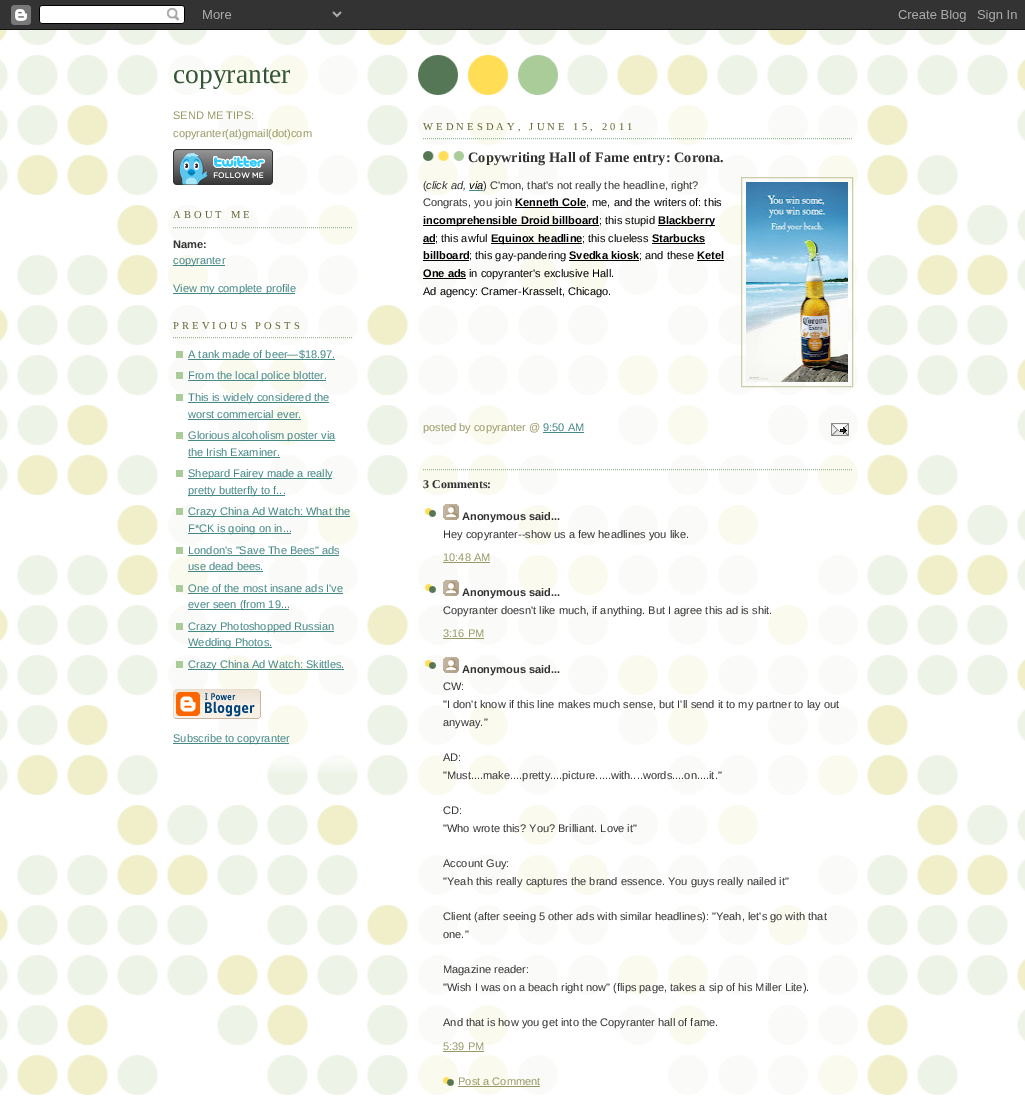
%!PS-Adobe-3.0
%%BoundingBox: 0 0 1025 1101
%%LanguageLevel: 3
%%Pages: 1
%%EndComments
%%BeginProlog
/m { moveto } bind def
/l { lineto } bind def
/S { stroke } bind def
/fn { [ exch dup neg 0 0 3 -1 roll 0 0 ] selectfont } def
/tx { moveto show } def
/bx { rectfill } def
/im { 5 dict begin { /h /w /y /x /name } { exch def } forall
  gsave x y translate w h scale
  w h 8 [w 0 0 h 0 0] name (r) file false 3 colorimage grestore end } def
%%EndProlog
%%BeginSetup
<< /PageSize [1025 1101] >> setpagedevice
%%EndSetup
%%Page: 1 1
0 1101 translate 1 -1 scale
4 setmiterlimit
1 setgray
0 0 1025 1101 bx
(image0.raw) 0 30 1025 1065 im
(image1.raw) 0 0 1025 30 im
(image2.raw) 417 55 141 41 im
(image3.raw) 268 759 89 14 im
(image4.raw) 167 55 191 704 im
/LiberationSerif-Regular 27.5 fn
0.2 0.333 0.2 setrgbcolor
(copyranter) 173 83 tx
/LiberationSans-Regular 11.05 fn
0.6 0.6 0.4 setrgbcolor
(SEND ME TIPS:) 173 119 tx
(copyranter\(at\)gmail\(dot\)com) 173 137 tx
(image5.raw) 173 149 100 36 im
0.6 0.733 0.6 setrgbcolor
[1 1] 0 setdash
173 227.5 m 353 227.5 l S
/LiberationSerif-Regular 10.5 fn
0.4 0.4 0.2 setrgbcolor
173 218 m 3.15 0 (ABOUT ME) ashow
/LiberationSans-Bold 11.05 fn
0.2 setgray
(Name:) 173 248 tx
0.267 0.533 0.533 setrgbcolor
173 265 52 1 bx
/LiberationSans-Regular 11.05 fn
(copyranter) 173 264 tx
173 293 122 1 bx
(View my complete profile) 173 292 tx
0.6 0.733 0.6 setrgbcolor
173 337.5 m 353 337.5 l S
/LiberationSerif-Regular 10.5 fn
0.4 0.4 0.2 setrgbcolor
173 329 m 3.15 0 (PREVIOUS POSTS) ashow
0.667 0.8 0.6 setrgbcolor
176 351 7 7 bx
/LiberationSans-Regular 11.05 fn
0.267 0.533 0.533 setrgbcolor
(A tank made of beer—$18.97.) 188 358 tx
188 359 147 1 bx
0.667 0.8 0.6 setrgbcolor
176 372 7 7 bx
0.267 0.533 0.533 setrgbcolor
188 380 138 1 bx
(From the local police blotter.) 188 379 tx
0.667 0.8 0.6 setrgbcolor
176 394 7 7 bx
0.267 0.533 0.533 setrgbcolor
188 402 141 1 bx
(This is widely considered the) 188 401 tx
(worst commercial ever.) 188 418 tx
188 419 113 1 bx
0.667 0.8 0.6 setrgbcolor
176 432 7 7 bx
0.267 0.533 0.533 setrgbcolor
188 440 147 1 bx
(Glorious alcoholism poster via) 188 439 tx
(the Irish Examiner.) 188 456 tx
188 457 92 1 bx
0.667 0.8 0.6 setrgbcolor
176 470 7 7 bx
0.267 0.533 0.533 setrgbcolor
188 478 144 1 bx
(Shepard Fairey made a really) 188 477 tx
188 495 97 1 bx
(pretty butterfly to f...) 188 494 tx
0.667 0.8 0.6 setrgbcolor
176 508 7 7 bx
0.267 0.533 0.533 setrgbcolor
188 516 162 1 bx
(Crazy China Ad Watch: What the) 188 515 tx
188 533 103 1 bx
(F*CK is going on in...) 188 532 tx
0.667 0.8 0.6 setrgbcolor
176 547 7 7 bx
0.267 0.533 0.533 setrgbcolor
(London's "Save The Bees" ads) 188 554 tx
188 555 151 1 bx
(use dead bees.) 188 570 tx
188 571 75 1 bx
0.667 0.8 0.6 setrgbcolor
176 585 7 7 bx
0.267 0.533 0.533 setrgbcolor
(One of the most insane ads I've) 188 592 tx
188 593 155 1 bx
188 609 101 1 bx
(ever seen \(from 19...) 188 608 tx
0.667 0.8 0.6 setrgbcolor
176 623 7 7 bx
0.267 0.533 0.533 setrgbcolor
188 631 146 1 bx
(Crazy Photoshopped Russian) 188 630 tx
188 647 84 1 bx
(Wedding Photos.) 188 646 tx
0.667 0.8 0.6 setrgbcolor
176 661 7 7 bx
0.267 0.533 0.533 setrgbcolor
188 669 156 1 bx
(Crazy China Ad Watch: Skittles.) 188 668 tx
(image6.raw) 173 689 88 30 im
173 743 116 1 bx
(Subscribe to copyranter) 173 742 tx
(image7.raw) 417 105 441 990 im
0.6 0.733 0.6 setrgbcolor
423 138.5 m 853 138.5 l S
/LiberationSerif-Regular 10.5 fn
0.4 0.4 0.2 setrgbcolor
423 130 m 3.15 0 (WEDNESDAY, JUNE 15, 2011) ashow
(image8.raw) 423 151 41 10 im
/LiberationSerif-Bold 14.4 fn
0.2 setgray
(Copywriting Hall of Fame entry: Corona.) 468 162 tx
/LiberationSans-Regular 11.05 fn
(\() 423 189 tx
/LiberationSans-Italic 11.05 fn
(click ad,) 426 189 tx
0 setgray
(via) 469 189 tx
0.267 0.533 0.533 setrgbcolor
469 190 14 1 bx
/LiberationSans-Regular 11.05 fn
0.2 setgray
(\) C'mon, that's not really the headline, right?) 483 189 tx
0.8 0.8 0.667 setrgbcolor
[] 0 setdash
741.5 177.5 111 209 rectstroke
(image9.raw) 746 182 102 200 im
0.2 setgray
(Congrats, you join) 423 206 tx
/LiberationSans-Bold 11.05 fn
0 setgray
(Kenneth Cole) 515 206 tx
515 207 71 1 bx
/LiberationSans-Regular 11.05 fn
(, me, and the writers of: this) 586 206 tx
423 225 176 1 bx
/LiberationSans-Bold 11.05 fn
(incomprehensible Droid billboard) 423 224 tx
/LiberationSans-Regular 11.05 fn
(; this stupid) 599 224 tx
658 225 57 1 bx
/LiberationSans-Bold 11.05 fn
(Blackberry) 658 224 tx
(ad) 423 242 tx
423 243 12 1 bx
/LiberationSans-Regular 11.05 fn
(; this awful) 435 242 tx
491 243 91 1 bx
/LiberationSans-Bold 11.05 fn
(Equinox headline) 491 242 tx
/LiberationSans-Regular 11.05 fn
(; this clueless) 582 242 tx
/LiberationSans-Bold 11.05 fn
(Starbucks) 652 242 tx
652 243 53 1 bx
(billboard) 423 259 tx
423 260 46 1 bx
/LiberationSans-Regular 11.05 fn
(; this gay-pandering) 469 259 tx
/LiberationSans-Bold 11.05 fn
(Svedka kiosk) 569 259 tx
569 260 70 1 bx
/LiberationSans-Regular 11.05 fn
(; and these) 639 259 tx
/LiberationSans-Bold 11.05 fn
(Ketel) 697 259 tx
697 260 27 1 bx
(One ads) 423 277 tx
423 278 43 1 bx
/LiberationSans-Regular 11.05 fn
(in copyranter's exclusive Hall.) 469 277 tx
(Ad agency: Cramer-Krasselt, Chicago.) 423 295 tx
0.6 0.6 0.4 setrgbcolor
(posted by copyranter @) 423 431 tx
0.267 0.533 0.533 setrgbcolor
(9:50 AM) 543 431 tx
543 432 41 1 bx
(image10.raw) 831 423 18 13 im
0.6 0.733 0.6 setrgbcolor
[1 1] 0 setdash
423 469.5 m 853 469.5 l S
/LiberationSerif-Bold 12 fn
0.2 setgray
(3 Comments:) 423 488 tx
(image11.raw) 425 508 11 9 im
(image12.raw) 443 504 16 16 im
/LiberationSans-Bold 11.05 fn
(Anonymous said...) 462 520 tx
/LiberationSans-Regular 11.05 fn
(Hey copyranter--show us a few headlines you like.) 443 538 tx
0.6 0.6 0.4 setrgbcolor
(10:48 AM) 443 561 tx
443 562 47 1 bx
(image13.raw) 425 584 11 9 im
(image14.raw) 443 580 16 16 im
/LiberationSans-Bold 11.05 fn
0.2 setgray
(Anonymous said...) 462 596 tx
/LiberationSans-Regular 11.05 fn
(Copyranter doesn't like much, if anything. But I agree this ad is shit.) 443 614 tx
0.6 0.6 0.4 setrgbcolor
(3:16 PM) 443 637 tx
443 638 41 1 bx
(image15.raw) 425 660 11 9 im
(image16.raw) 443 657 16 16 im
/LiberationSans-Bold 11.05 fn
0.2 setgray
(Anonymous said...) 462 673 tx
/LiberationSans-Regular 11.05 fn
(CW:) 443 690 tx
("I don't know if this line makes much sense, but I'll send it to my partner to lay out) 443 708 tx
(anyway.") 443 726 tx
(AD:) 443 761 tx
("Must....make....pretty....picture.....with....words....on....it.") 443 779 tx
(CD:) 443 814 tx
("Who wrote this? You? Brilliant. Love it") 443 832 tx
(Account Guy:) 443 867 tx
("Yeah this really captures the brand essence. You guys really nailed it") 443 885 tx
(Client \(after seeing 5 other ads with similar headlines\): "Yeah, let's go with that) 443 920 tx
(one.") 443 938 tx
(Magazine reader:) 443 973 tx
("Wish I was on a beach right now" \(flips page, takes a sip of his Miller Lite\).) 443 991 tx
(And that is how you get into the Copyranter hall of fame.) 443 1026 tx
0.6 0.6 0.4 setrgbcolor
(5:39 PM) 443 1050 tx
443 1051 41 1 bx
(image17.raw) 443 1077 11 9 im
(Post a Comment) 458 1085 tx
458 1086 82 1 bx
showpage
%%EOF
